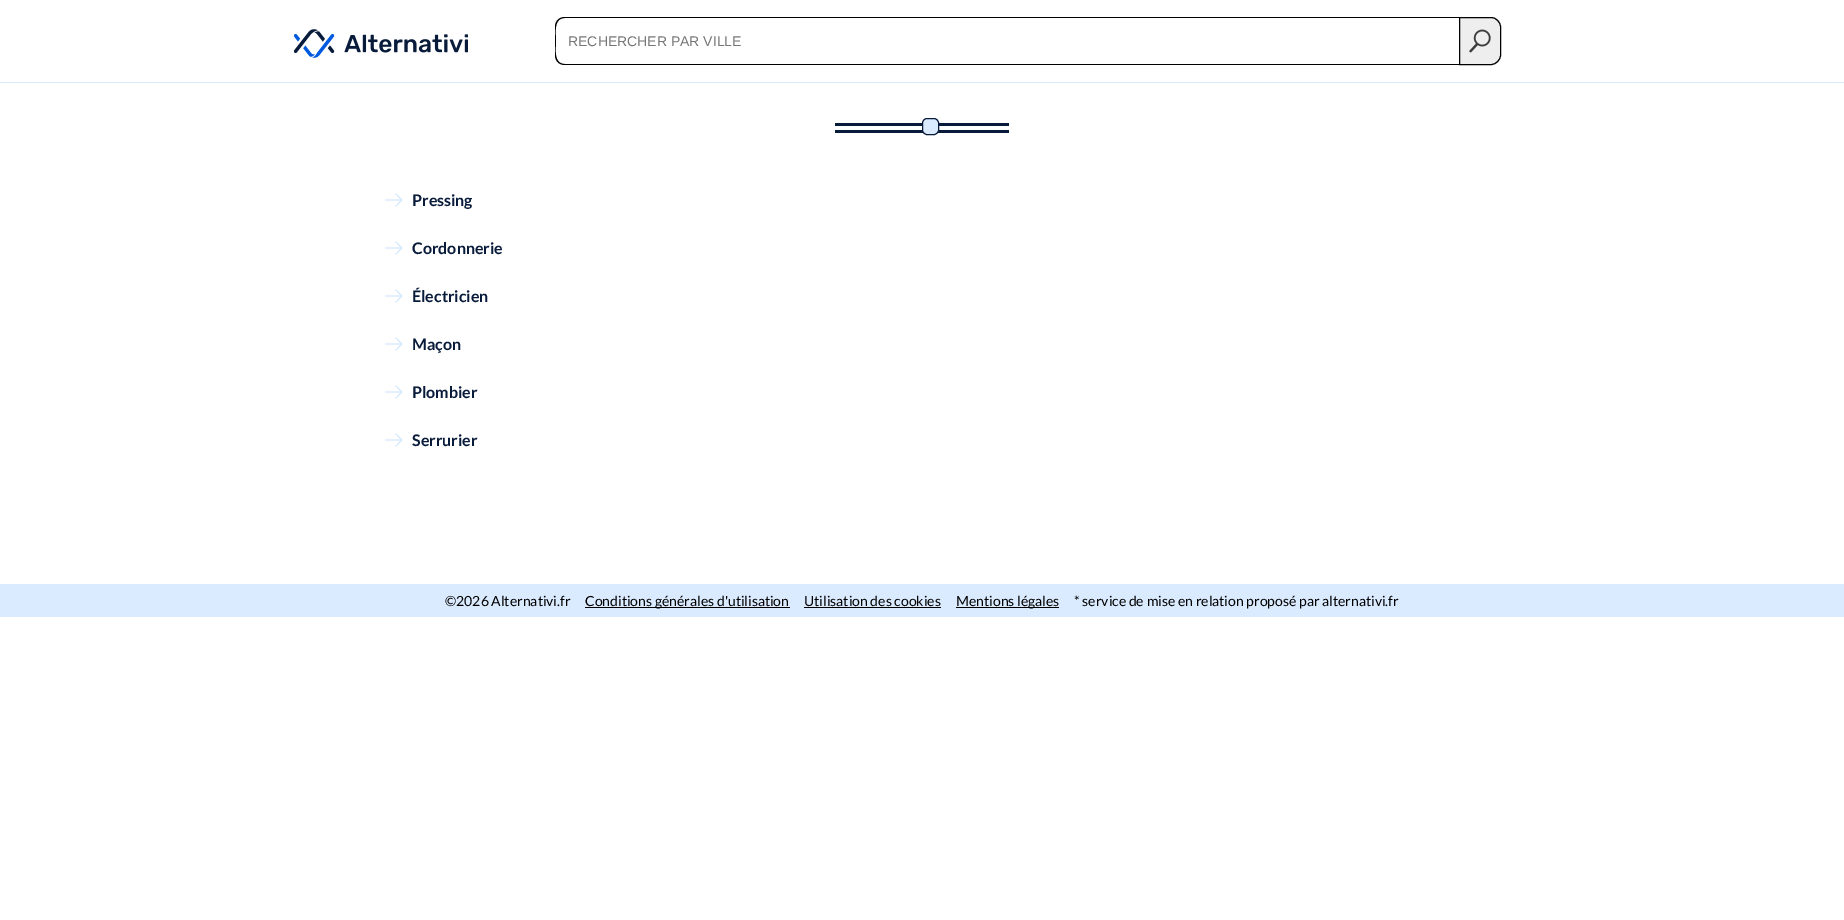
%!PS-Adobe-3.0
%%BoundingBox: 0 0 1844 920
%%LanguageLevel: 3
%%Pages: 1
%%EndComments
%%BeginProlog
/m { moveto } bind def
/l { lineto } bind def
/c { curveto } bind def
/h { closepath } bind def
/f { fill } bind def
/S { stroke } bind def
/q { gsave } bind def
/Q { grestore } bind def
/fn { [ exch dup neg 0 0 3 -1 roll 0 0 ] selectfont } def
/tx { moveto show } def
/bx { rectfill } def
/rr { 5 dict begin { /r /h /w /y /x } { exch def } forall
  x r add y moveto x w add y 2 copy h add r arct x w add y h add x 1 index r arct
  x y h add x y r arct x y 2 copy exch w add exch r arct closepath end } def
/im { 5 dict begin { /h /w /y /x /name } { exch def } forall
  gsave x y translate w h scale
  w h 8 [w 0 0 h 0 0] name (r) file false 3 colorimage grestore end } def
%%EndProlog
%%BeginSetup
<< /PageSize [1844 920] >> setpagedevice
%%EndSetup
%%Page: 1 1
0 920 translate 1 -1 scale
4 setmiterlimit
1 setgray
0 0 1844 920 bx
0.859 0.922 1 setrgbcolor
0 82 1844 1 bx
(image0.raw) 294 29 174 29 im
0 setgray
565 17 m 1459 17 l 1459 65 l 565 65 l 559 65 555 61 555 55 c 555 27 l 555 21 559 17 565 17 c h 565 18 m 1459 18 l 1459 64 l 565 64 l 553 64 556 48 556 41 c 556 34 553 18 565 18 c h eofill
/LiberationSans-Regular 14 fn
0.459 setgray
(RECHERCHER PAR VILLE) 568 46 tx
0.933 setgray
1459 17 m 1491 17 l 1496.5 17 1501 21.5 1501 27 c 1501 55 l 1501 60.5 1496.5 65 1491 65 c 1459 65 l h f
(image1.raw) 1469 29 22 24 im
0 setgray
1459.5 17.5 m 1491 17.5 l 1496 17.5 1500.5 22 1500.5 27 c 1500.5 55 l 1500.5 60 1496 64.5 1491 64.5 c 1459.5 64.5 l h S
0.031 0.106 0.227 setrgbcolor
835 123 174 3 bx
835 130 174 3 bx
0.859 0.922 1 setrgbcolor
922.5 118.5 16 16 4.5 rr q f Q
0.031 0.106 0.227 setrgbcolor
S
(image2.raw) 385 193 18 14 im
/Lato-Bold 16 fn
(Pressing) 412 206 tx
(image2.raw) 385 241 18 14 im
(Cordonnerie) 412 254 tx
(image2.raw) 385 289 18 14 im
(Électricien) 412 302 tx
(image2.raw) 385 337 18 14 im
(Maçon) 412 350 tx
(image2.raw) 385 385 18 14 im
(Plombier) 412 398 tx
(image2.raw) 385 433 18 14 im
(Serrurier) 412 446 tx
0.859 0.922 1 setrgbcolor
0 584 1844 33 bx
/Lato-Regular 14 fn
0 setgray
(©2026 Alternativi.fr) 445 606 tx
585 607 205 1 bx
(Conditions générales d'utilisation) 585 606 tx
(Utilisation des cookies) 804 606 tx
804 607 137 1 bx
956 607 103 1 bx
(Mentions légales) 956 606 tx
(* service de mise en relation proposé par alternativi.fr) 1074 606 tx
showpage
%%EOF
